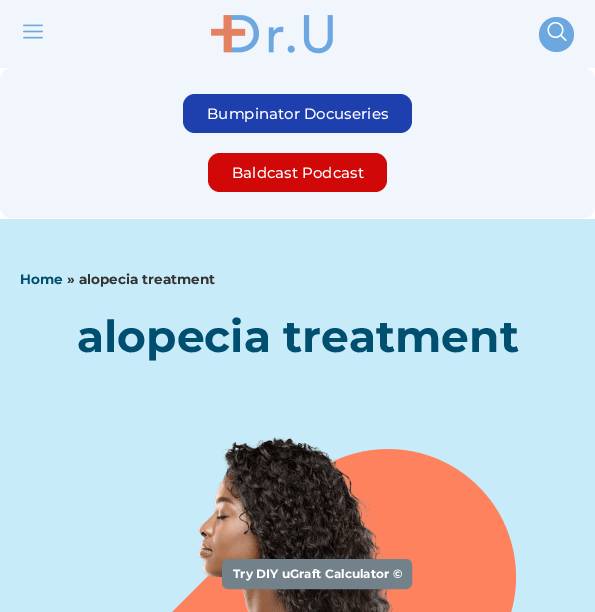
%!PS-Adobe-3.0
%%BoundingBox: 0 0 595 612
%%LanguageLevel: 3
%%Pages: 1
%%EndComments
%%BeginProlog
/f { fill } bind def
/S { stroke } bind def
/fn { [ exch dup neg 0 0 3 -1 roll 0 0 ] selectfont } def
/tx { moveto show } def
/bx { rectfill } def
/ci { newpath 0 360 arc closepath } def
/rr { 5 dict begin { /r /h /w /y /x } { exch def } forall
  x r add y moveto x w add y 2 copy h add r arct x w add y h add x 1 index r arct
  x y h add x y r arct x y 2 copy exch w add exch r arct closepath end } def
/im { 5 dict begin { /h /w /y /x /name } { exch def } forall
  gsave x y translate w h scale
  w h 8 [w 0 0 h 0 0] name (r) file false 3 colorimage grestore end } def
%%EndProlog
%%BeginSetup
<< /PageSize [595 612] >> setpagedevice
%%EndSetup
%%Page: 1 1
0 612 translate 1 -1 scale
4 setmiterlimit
1 setgray
0 0 595 612 bx
0.941 0.965 0.988 setrgbcolor
0 0 595 68 bx
(image0.raw) 23 24 20 15 im
(image1.raw) 211 15 122 39 im
0.424 0.655 0.875 setrgbcolor
556.5 34.5 17.5 ci f
(image2.raw) 547 21 20 20 im
0.941 0.965 0.988 setrgbcolor
0 68 595 150 12 rr f
0.118 0.251 0.686 setrgbcolor
183 94 229 39 12 rr f
/Montserrat-Medium 15 fn
1 setgray
(Bumpinator Docuseries) 207 119 tx
0.82 0.031 0.031 setrgbcolor
208 153 179 39 12 rr f
1 setgray
(Baldcast Podcast) 232 178 tx
0.78 0.922 0.976 setrgbcolor
0 219 595 393 bx
/Montserrat-Bold 13.6 fn
0 0.31 0.443 setrgbcolor
(Home) 20 284 tx
0.2 setgray
(» alopecia treatment) 67 284 tx
/Montserrat-Bold 44 fn
0 0.31 0.443 setrgbcolor
(alopecia treatment) 77 352 tx
(image3.raw) 172 449 344 163 im
(image4.raw) 198 437 195 175 im
0.451 0.506 0.541 setrgbcolor
222.5 559.5 189 29 5.5 rr S
223 560 188 28 5 rr f
/Montserrat-Bold 12 fn
1 setgray
(Try DIY uGraft Calculator ©) 233 578 tx
showpage
%%EOF
